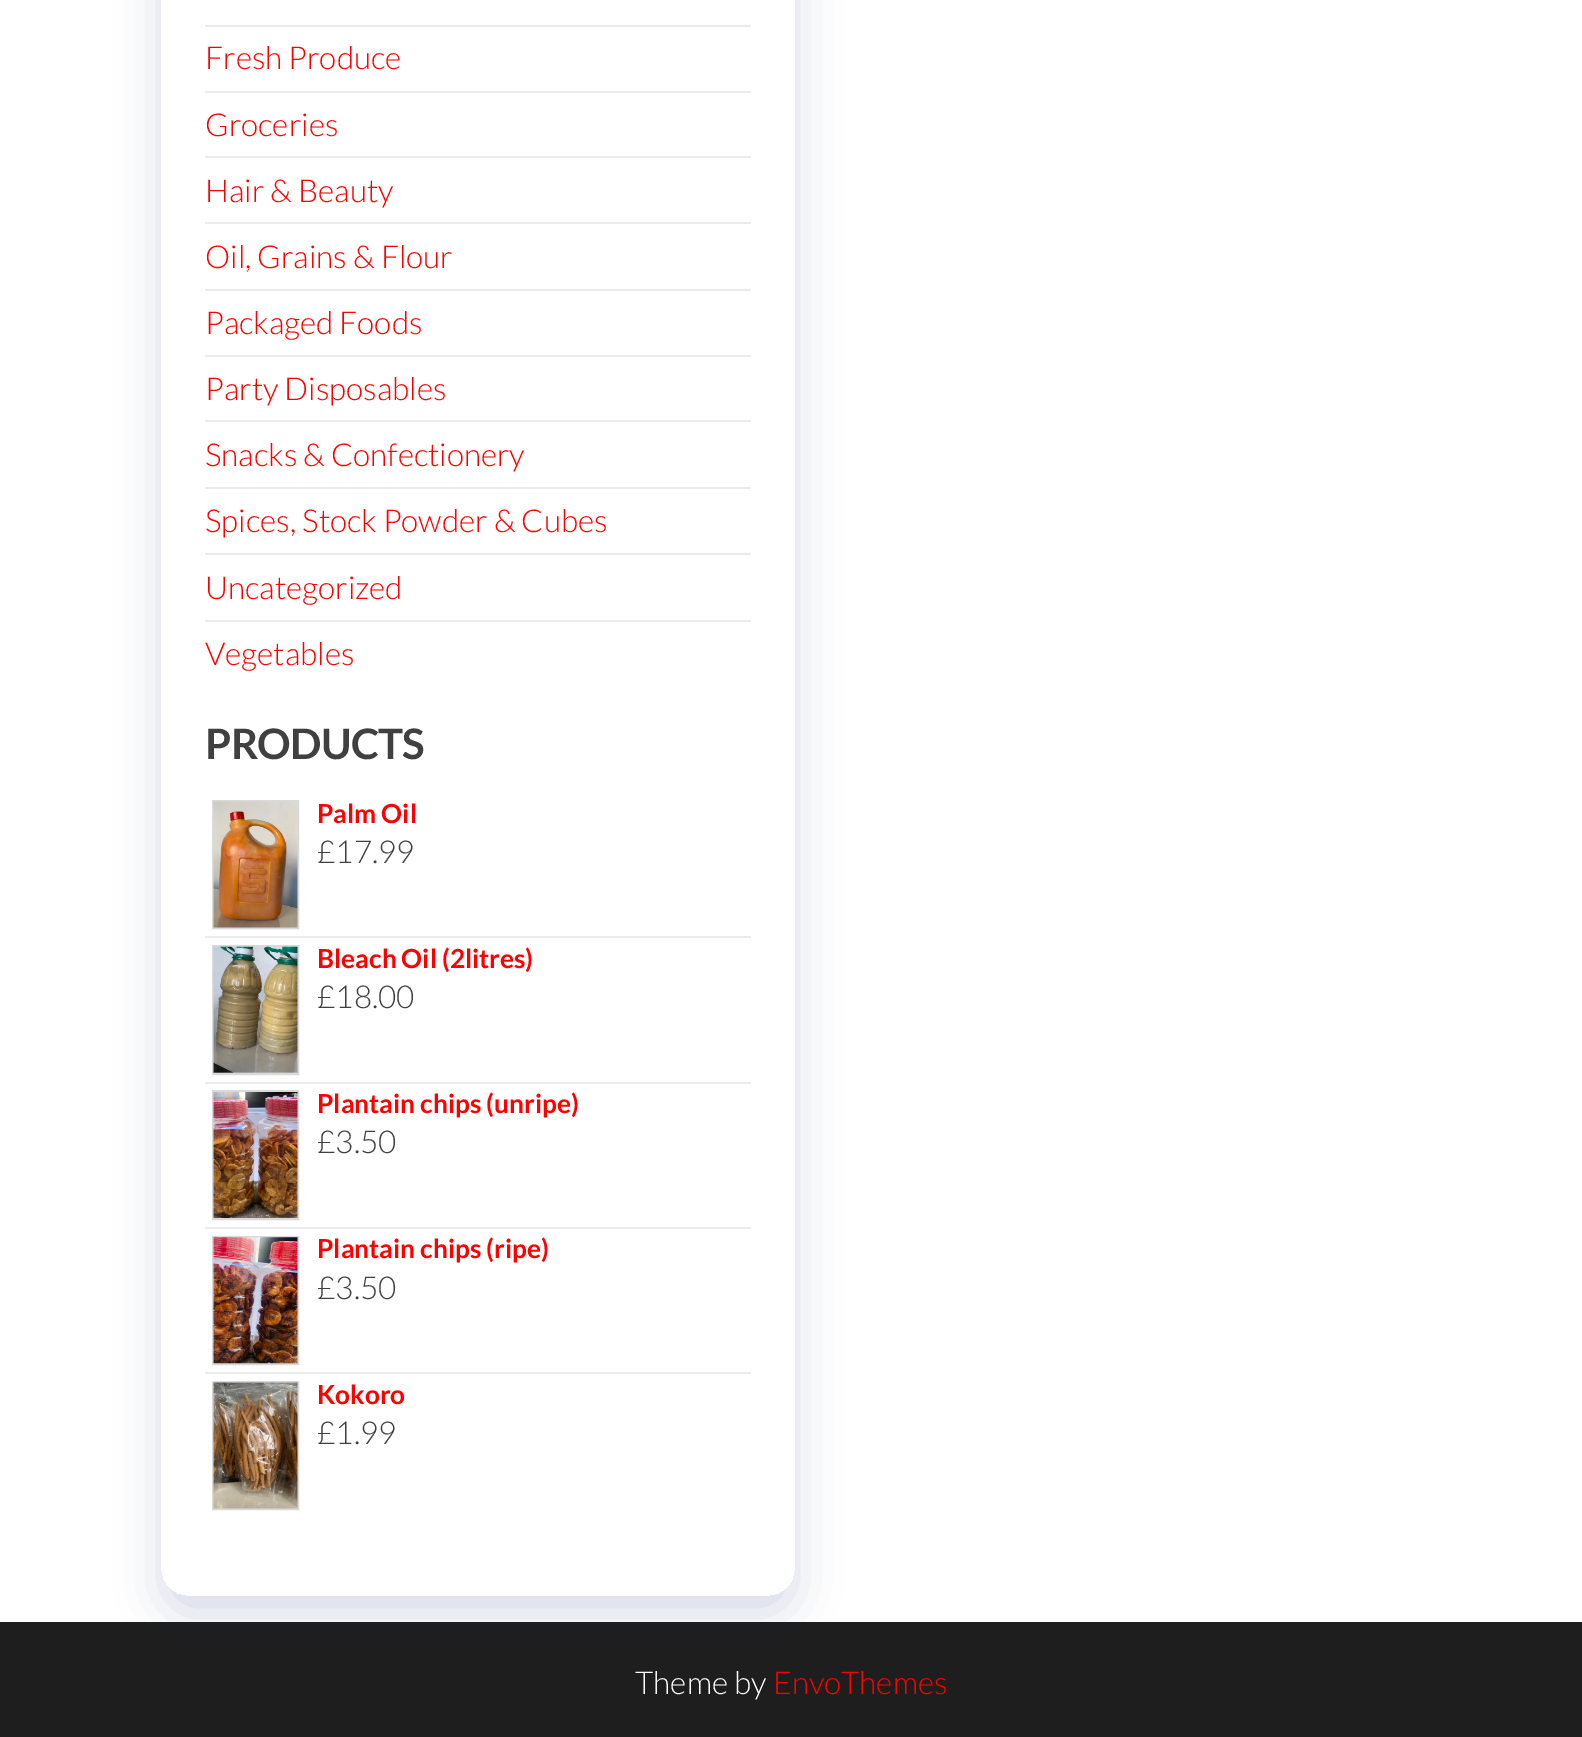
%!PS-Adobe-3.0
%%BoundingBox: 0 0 1582 1737
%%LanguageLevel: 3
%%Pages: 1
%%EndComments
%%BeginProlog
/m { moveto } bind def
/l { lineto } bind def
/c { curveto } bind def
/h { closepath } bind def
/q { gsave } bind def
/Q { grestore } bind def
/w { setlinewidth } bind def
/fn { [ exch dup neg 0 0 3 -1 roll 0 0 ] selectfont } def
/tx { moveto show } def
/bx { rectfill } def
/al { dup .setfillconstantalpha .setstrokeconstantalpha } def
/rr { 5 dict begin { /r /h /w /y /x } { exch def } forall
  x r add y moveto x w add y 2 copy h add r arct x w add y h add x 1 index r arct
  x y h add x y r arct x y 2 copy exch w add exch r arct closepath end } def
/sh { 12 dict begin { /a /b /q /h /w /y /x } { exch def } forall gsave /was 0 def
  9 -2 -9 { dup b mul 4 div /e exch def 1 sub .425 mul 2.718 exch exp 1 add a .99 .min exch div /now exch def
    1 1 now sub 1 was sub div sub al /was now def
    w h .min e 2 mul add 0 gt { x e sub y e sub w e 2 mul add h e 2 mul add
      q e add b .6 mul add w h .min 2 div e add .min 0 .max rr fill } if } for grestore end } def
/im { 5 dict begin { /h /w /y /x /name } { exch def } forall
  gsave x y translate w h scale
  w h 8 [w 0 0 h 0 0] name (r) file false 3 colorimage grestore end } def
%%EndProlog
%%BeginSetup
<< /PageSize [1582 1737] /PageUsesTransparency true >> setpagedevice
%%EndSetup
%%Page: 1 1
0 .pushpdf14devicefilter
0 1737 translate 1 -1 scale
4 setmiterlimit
1 setgray
0 0 1582 1737 bx
0.118 setgray
0 1622 1582 115 bx
q
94 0 m 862 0 l 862 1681 l 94 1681 l h 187 -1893 m 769 -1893 l 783.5 -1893 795 -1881.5 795 -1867 c 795 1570 l 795 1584.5 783.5 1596 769 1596 c 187 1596 l 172.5 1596 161 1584.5 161 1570 c 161 -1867 l 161 -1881.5 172.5 -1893 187 -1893 c h eoclip newpath
0.11 0.176 0.443 setrgbcolor
161 -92 634 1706 26 22 0.17 sh
Q
0.922 setgray
205 25 546 2 bx
205 91 546 2 bx
/Lato-Light 31.5 fn
1 0 0 setrgbcolor
(Fresh Produce) 205 69 tx
0.922 setgray
205 156 546 2 bx
1 0 0 setrgbcolor
(Groceries) 205 136 tx
0.922 setgray
205 222 546 2 bx
1 0 0 setrgbcolor
(Hair & Beauty) 205 202 tx
0.922 setgray
205 289 546 2 bx
1 0 0 setrgbcolor
(Oil, Grains & Flour) 205 268 tx
0.922 setgray
205 355 546 2 bx
1 0 0 setrgbcolor
(Packaged Foods) 205 334 tx
0.922 setgray
205 420 546 2 bx
1 0 0 setrgbcolor
(Party Disposables) 205 400 tx
0.922 setgray
205 487 546 2 bx
1 0 0 setrgbcolor
(Snacks & Confectionery) 205 466 tx
0.922 setgray
205 553 546 2 bx
1 0 0 setrgbcolor
(Spices, Stock Powder & Cubes) 205 532 tx
0.922 setgray
205 620 546 2 bx
1 0 0 setrgbcolor
(Uncategorized) 205 599 tx
(Vegetables) 205 665 tx
/Lato-Bold 42 fn
0.251 setgray
205 759 m -0.75 0 (PRODUCTS) ashow
0.922 setgray
205 936 546 2 bx
0.851 setgray
2 w
213 801 85 127 rectstroke
(image0.raw) 213 801 85 127 im
/Lato-Bold 26.25 fn
1 0 0 setrgbcolor
(Palm Oil) 317 823 tx
/Lato-Light 31.5 fn
0.251 setgray
(£17.99) 317 863 tx
0.922 setgray
205 1082 546 2 bx
0.851 setgray
213 946 85 128 rectstroke
(image1.raw) 213 946 85 127 im
/Lato-Bold 26.25 fn
1 0 0 setrgbcolor
(Bleach Oil \(2litres\)) 317 968 tx
/Lato-Light 31.5 fn
0.251 setgray
(£18.00) 317 1008 tx
0.922 setgray
205 1227 546 2 bx
0.851 setgray
213 1091 85 128 rectstroke
(image2.raw) 213 1092 85 126 im
/Lato-Bold 26.25 fn
1 0 0 setrgbcolor
(Plantain chips \(unripe\)) 317 1113 tx
/Lato-Light 31.5 fn
0.251 setgray
(£3.50) 317 1153 tx
0.922 setgray
205 1372 546 2 bx
0.851 setgray
213 1237 85 127 rectstroke
(image3.raw) 213 1237 85 127 im
/Lato-Bold 26.25 fn
1 0 0 setrgbcolor
(Plantain chips \(ripe\)) 317 1258 tx
/Lato-Light 31.5 fn
0.251 setgray
(£3.50) 317 1299 tx
0.851 setgray
213 1382 85 127 rectstroke
(image4.raw) 213 1382 85 127 im
/Lato-Bold 26.25 fn
1 0 0 setrgbcolor
(Kokoro) 317 1404 tx
/Lato-Light 31.5 fn
0.251 setgray
(£1.99) 317 1444 tx
1 setgray
(Theme by) 635 1694 tx
1 0 0 setrgbcolor
(EnvoThemes) 773 1694 tx
.poppdf14devicefilter showpage
%%EOF
